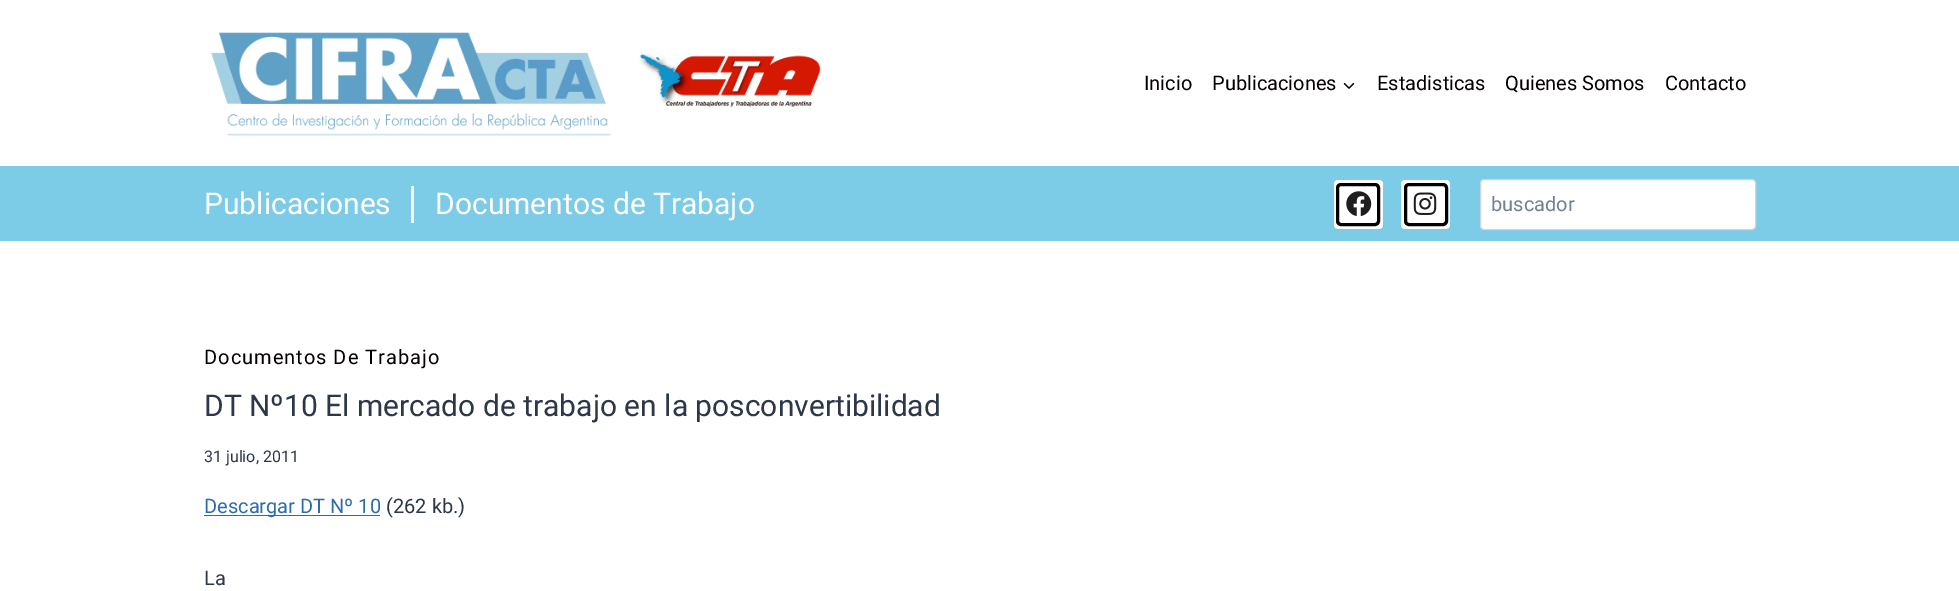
%!PS-Adobe-3.0
%%BoundingBox: 0 0 1959 591
%%LanguageLevel: 3
%%Pages: 1
%%EndComments
%%BeginProlog
/m { moveto } bind def
/f { fill } bind def
/S { stroke } bind def
/q { gsave } bind def
/Q { grestore } bind def
/w { setlinewidth } bind def
/fn { [ exch dup neg 0 0 3 -1 roll 0 0 ] selectfont } def
/tx { moveto show } def
/bx { rectfill } def
/rr { 5 dict begin { /r /h /w /y /x } { exch def } forall
  x r add y moveto x w add y 2 copy h add r arct x w add y h add x 1 index r arct
  x y h add x y r arct x y 2 copy exch w add exch r arct closepath end } def
/im { 5 dict begin { /h /w /y /x /name } { exch def } forall
  gsave x y translate w h scale
  w h 8 [w 0 0 h 0 0] name (r) file false 3 colorimage grestore end } def
%%EndProlog
%%BeginSetup
<< /PageSize [1959 591] >> setpagedevice
%%EndSetup
%%Page: 1 1
0 591 translate 1 -1 scale
4 setmiterlimit
1 setgray
0 0 1959 591 bx
(image0.raw) 211 32 610 104 im
/Roboto-Regular 20 fn
0.02 0 0 setrgbcolor
(Inicio) 1144 90 tx
(Publicaciones) 1212 90 tx
(image1.raw) 1343 82 12 7 im
(Estadisticas) 1377 90 tx
(Quienes Somos) 1505 90 tx
(Contacto) 1665 90 tx
0.486 0.796 0.906 setrgbcolor
0 166 1959 75 bx
/Roboto-Regular 30 fn
1 setgray
(Publicaciones) 204 214 tx
411 186 3 37 bx
(Documentos de Trabajo) 435 214 tx
1334 180 49 49 4 rr f
0 setgray
3 w
1337.5 184.5 41 40 3.5 rr S
(image2.raw) 1346 191 26 26 im
1 setgray
1401 180 49 49 4 rr f
0 setgray
1405.5 184.5 41 40 3.5 rr S
(image3.raw) 1413 192 24 23 im
1 setgray
1480.5 179.5 275 50 3.5 rr q f Q
0.796 0.835 0.878 setrgbcolor
1 w
S
/Roboto-Regular 20 fn
0.443 0.502 0.588 setrgbcolor
(buscador) 1491 211 tx
0.02 0 0 setrgbcolor
204 364 m 1 0 (Documentos De Trabajo) ashow
/Roboto-Regular 30 fn
0.176 0.216 0.282 setrgbcolor
(DT Nº10 El mercado de trabajo en la posconvertibilidad) 204 416 tx
/Roboto-Regular 16 fn
(31 julio, 2011) 204 462 tx
0.169 0.424 0.69 setrgbcolor
204 515 176 1 bx
/Roboto-Regular 20 fn
(Descargar DT Nº 10) 204 513 tx
0.176 0.216 0.282 setrgbcolor
(\(262 kb.\)) 386 513 tx
(La) 204 585 tx
showpage
%%EOF
